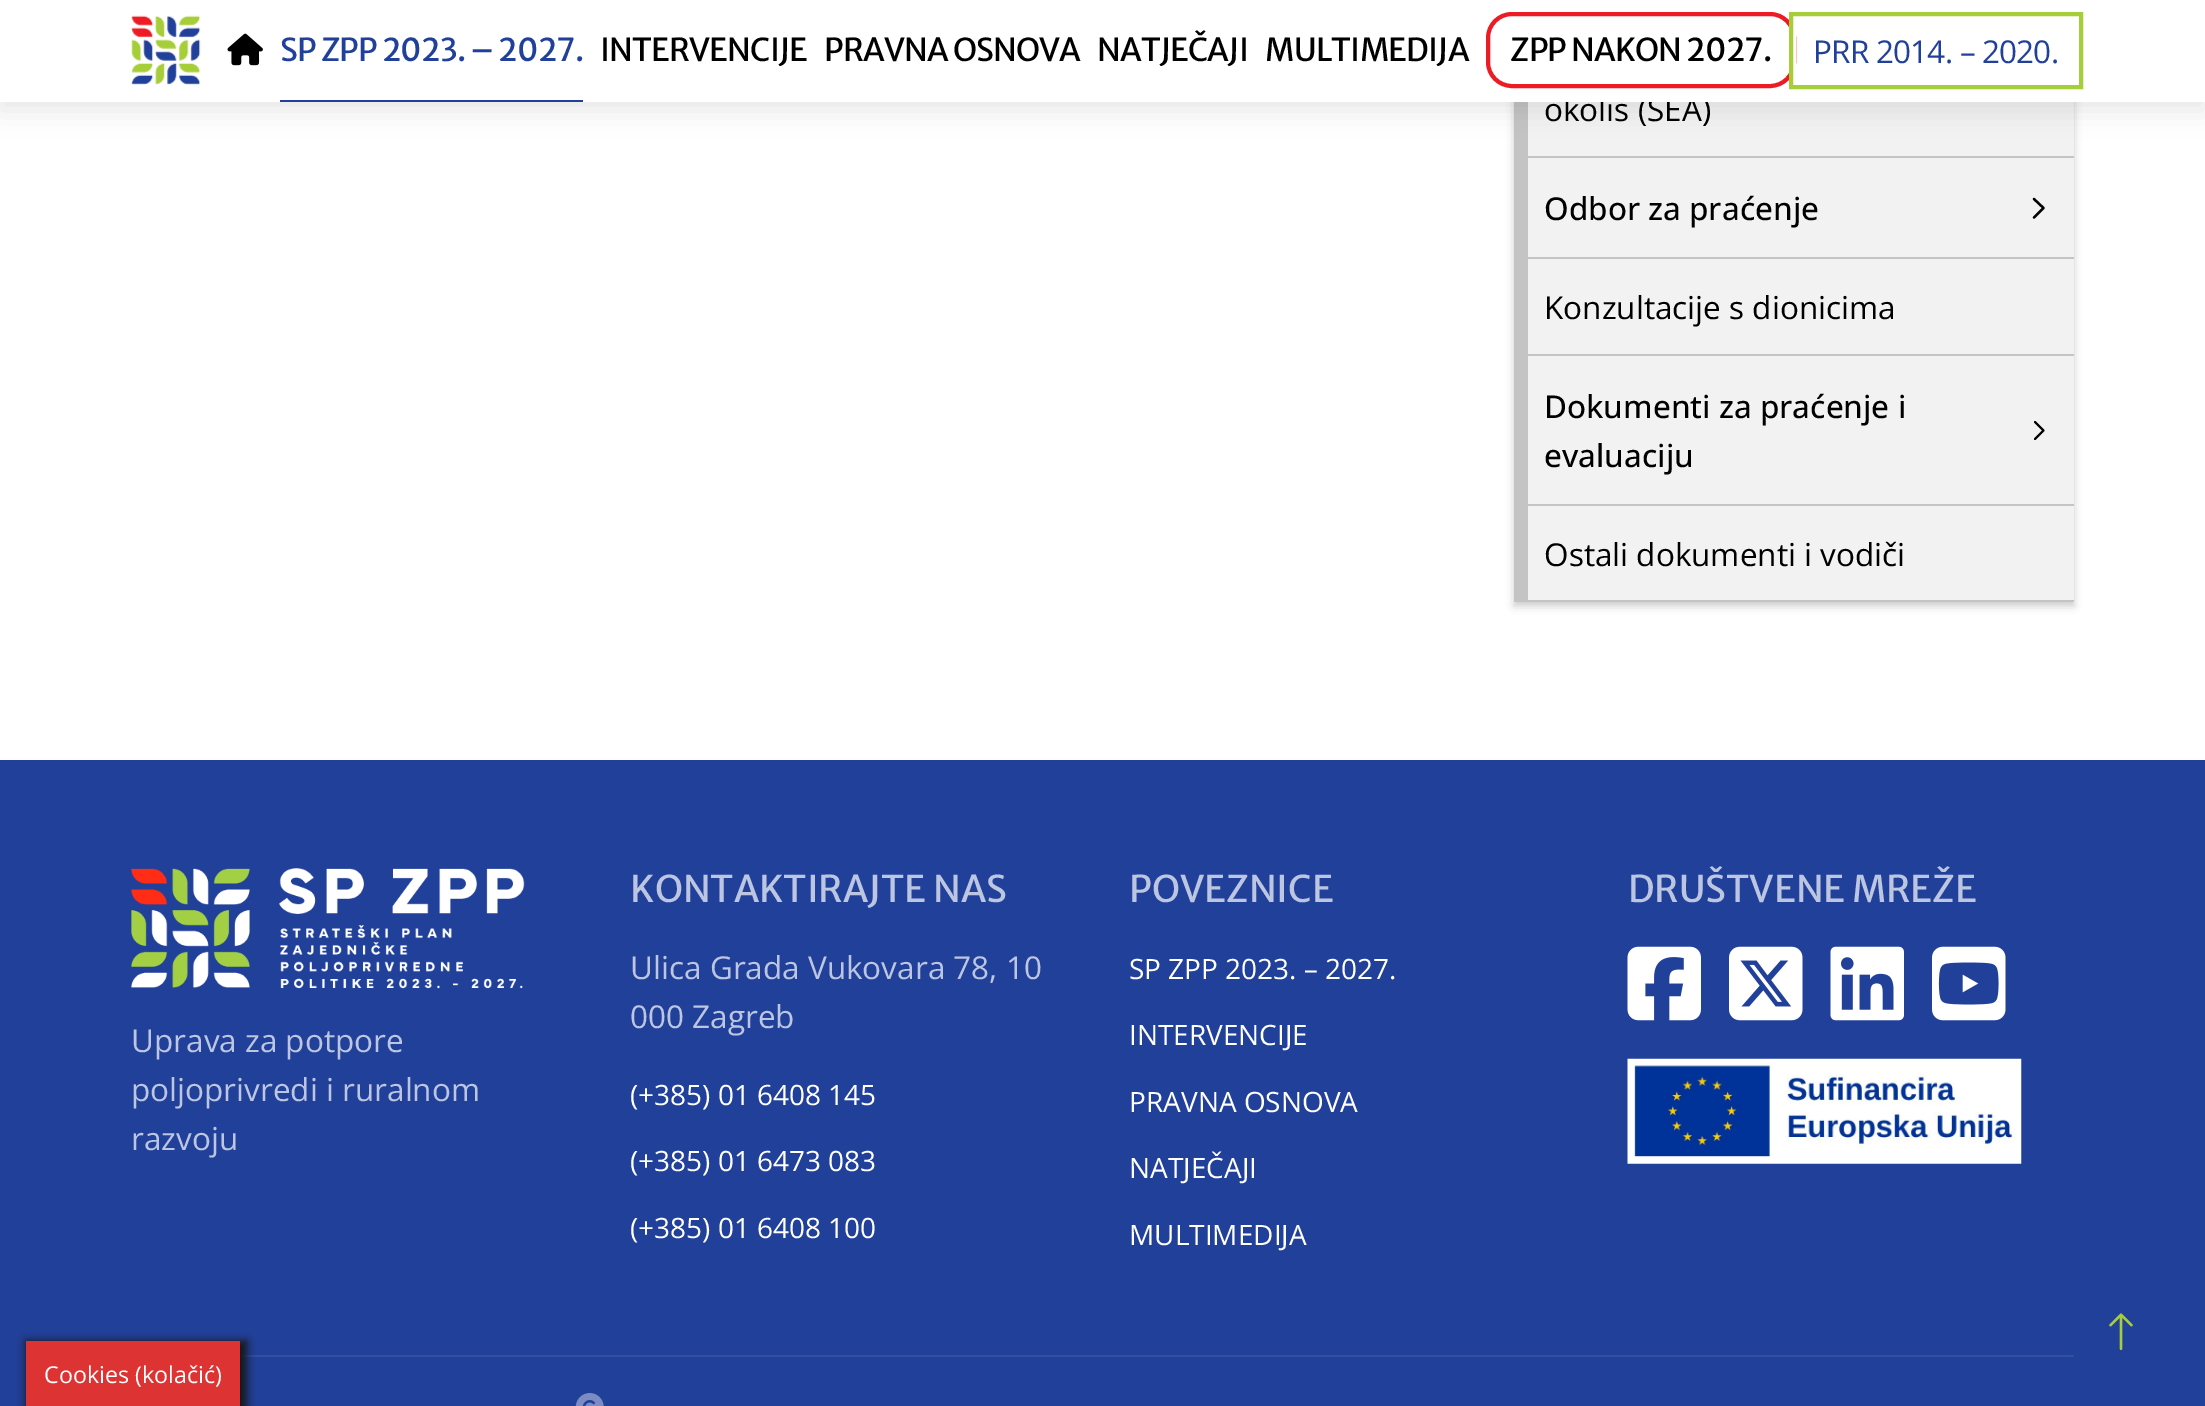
%!PS-Adobe-3.0
%%BoundingBox: 0 0 2205 1406
%%LanguageLevel: 3
%%Pages: 1
%%EndComments
%%BeginProlog
/m { moveto } bind def
/l { lineto } bind def
/S { stroke } bind def
/w { setlinewidth } bind def
/fn { [ exch dup neg 0 0 3 -1 roll 0 0 ] selectfont } def
/tx { moveto show } def
/bx { rectfill } def
/al { dup .setfillconstantalpha .setstrokeconstantalpha } def
/rr { 5 dict begin { /r /h /w /y /x } { exch def } forall
  x r add y moveto x w add y 2 copy h add r arct x w add y h add x 1 index r arct
  x y h add x y r arct x y 2 copy exch w add exch r arct closepath end } def
/sh { 12 dict begin { /a /b /q /h /w /y /x } { exch def } forall gsave /was 0 def
  9 -2 -9 { dup b mul 4 div /e exch def 1 sub .425 mul 2.718 exch exp 1 add a .99 .min exch div /now exch def
    1 1 now sub 1 was sub div sub al /was now def
    w h .min e 2 mul add 0 gt { x e sub y e sub w e 2 mul add h e 2 mul add
      q e add b .6 mul add w h .min 2 div e add .min 0 .max rr fill } if } for grestore end } def
/im { 5 dict begin { /h /w /y /x /name } { exch def } forall
  gsave x y translate w h scale
  w h 8 [w 0 0 h 0 0] name (r) file false 3 colorimage grestore end } def
%%EndProlog
%%BeginSetup
<< /PageSize [2205 1406] /PageUsesTransparency true >> setpagedevice
%%EndSetup
%%Page: 1 1
0 .pushpdf14devicefilter
0 1406 translate 1 -1 scale
4 setmiterlimit
1 setgray
0 0 2205 1406 bx
0 setgray
1514 -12 560 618 0 4 0.2 sh
0.949 setgray
1528 102 546 498 bx
0.769 setgray
1514 102 14 54 bx
0.02 setgray
0 9 2205 101 0 13 0.1 sh
/OpenSans-Regular 31.5 fn
0 setgray
(okoliš \(SEA\)) 1544 121 tx
1 setgray
0 0 2205 102 bx
(image0.raw) 131 15 70 70 im
(image1.raw) 227 33 36 33 im
/MerriweatherSans-Regular 31.5 fn
0.129 0.251 0.604 setrgbcolor
280 61 m -0.8 0 (SP ZPP 2023. – 2027.) ashow
280 100 303 2 bx
0 setgray
600 61 m -0.8 0 (INTERVENCIJE) ashow
824 61 m -0.8 0 (PRAVNA OSNOVA) ashow
1097 61 m -0.8 0 (NATJEČAJI) ashow
1265 61 m -0.8 0 (MULTIMEDIJA) ashow
0.929 0.11 0.141 setrgbcolor
4 w
1488 14 306 72 24 rr S
0 setgray
1510 61 m -0.8 0 (ZPP NAKON 2027.) ashow
1 setgray
1793 26 3 48 bx
0.651 0.808 0.224 setrgbcolor
1791 14 290 73 rectstroke
/OpenSans-Regular 31.5 fn
0.129 0.251 0.604 setrgbcolor
1813 63 m -0.8 0 (PRR 2014. – 2020.) ashow
0.769 setgray
1514 156 560 2 bx
1514 158 14 99 bx
1514 257 560 2 bx
/OpenSans-Medium 31.5 fn
0 setgray
(Odbor za praćenje) 1544 220 tx
2.3 w
1 setlinecap
1 setlinejoin
2034 199 m 2043.5 208 l 2034 217.5 l S
0.769 setgray
1514 259 14 95 bx
1514 354 560 2 bx
/OpenSans-Regular 31.5 fn
0 setgray
(Konzultacije s dionicima) 1544 319 tx
0.769 setgray
1514 356 14 148 bx
1514 504 560 2 bx
/OpenSans-Medium 31.5 fn
0 setgray
(Dokumenti za praćenje i) 1544 418 tx
(evaluaciju) 1544 467 tx
2.1 w
2035 422 m 2043.5 430.5 l 2035 439 l S
0.769 setgray
1514 506 14 94 bx
1514 600 560 2 bx
/OpenSans-Regular 31.5 fn
0 setgray
(Ostali dokumenti i vodiči) 1544 566 tx
0.129 0.251 0.604 setrgbcolor
0 760 2205 646 bx
(image2.raw) 131 868 394 121 im
0.737 0.776 0.882 setrgbcolor
(Uprava za potpore) 131 1052 tx
(poljoprivredi i ruralnom) 131 1101 tx
(razvoju) 131 1150 tx
/MerriweatherSans-Regular 36.75 fn
(KONTAKTIRAJTE NAS) 630 902 tx
/OpenSans-Regular 31.5 fn
(Ulica Grada Vukovara 78, 10) 630 979 tx
(000 Zagreb) 630 1028 tx
/OpenSans-Regular 28 fn
1 setgray
(\(+385\) 01 6408 145) 630 1105 tx
(\(+385\) 01 6473 083) 630 1171 tx
(\(+385\) 01 6408 100) 630 1238 tx
/MerriweatherSans-Regular 36.75 fn
0.737 0.776 0.882 setrgbcolor
(POVEZNICE) 1129 902 tx
/OpenSans-Regular 28 fn
1 setgray
(SP ZPP 2023. – 2027.) 1129 979 tx
(INTERVENCIJE) 1129 1045 tx
(PRAVNA OSNOVA) 1129 1112 tx
(NATJEČAJI) 1129 1178 tx
(MULTIMEDIJA) 1129 1245 tx
/MerriweatherSans-Regular 36.75 fn
0.737 0.776 0.882 setrgbcolor
(DRUŠTVENE MREŽE) 1628 902 tx
(image3.raw) 1627 946 74 75 im
(image4.raw) 1729 946 74 75 im
(image5.raw) 1830 946 74 75 im
(image6.raw) 1932 946 74 75 im
(image7.raw) 1627 1058 395 106 im
0.2 0.31 0.635 setrgbcolor
240 1355 1834 2 bx
(image8.raw) 575 1393 29 13 im
(image9.raw) 2109 1313 24 38 im
0.086 setgray
26 1341 221 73 0 4.5 1 sh
0.867 0.2 0.2 setrgbcolor
26 1341 214 65 bx
/OpenSans-Regular 23.25 fn
1 setgray
(Cookies \(kolačić\)) 44 1383 tx
.poppdf14devicefilter showpage
%%EOF
